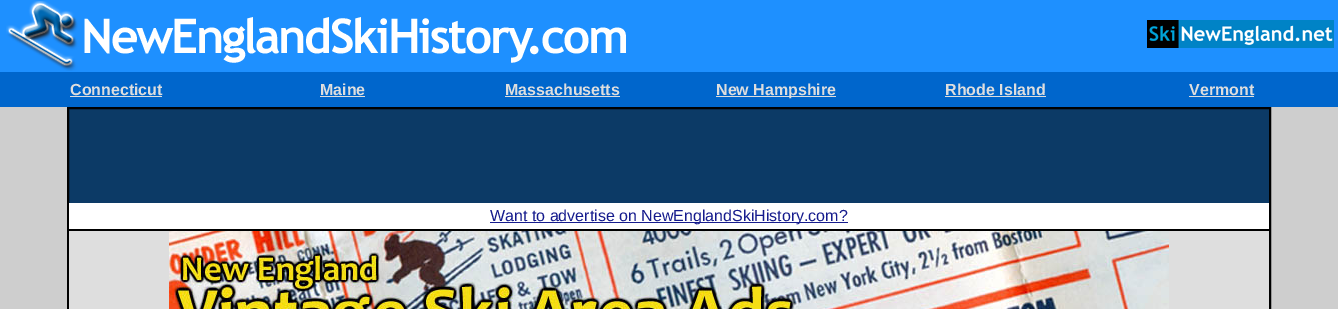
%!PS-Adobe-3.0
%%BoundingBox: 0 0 1338 309
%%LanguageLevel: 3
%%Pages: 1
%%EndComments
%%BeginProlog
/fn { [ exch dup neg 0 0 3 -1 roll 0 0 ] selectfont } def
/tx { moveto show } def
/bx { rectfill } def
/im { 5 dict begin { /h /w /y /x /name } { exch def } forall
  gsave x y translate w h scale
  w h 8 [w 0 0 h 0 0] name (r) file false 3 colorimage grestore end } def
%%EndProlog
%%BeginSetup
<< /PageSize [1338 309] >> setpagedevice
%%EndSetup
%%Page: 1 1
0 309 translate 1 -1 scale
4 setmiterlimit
0.808 setgray
0 0 1338 309 bx
0.118 0.565 1 setrgbcolor
0 0 1338 72 bx
(image0.raw) 6 1 620 70 im
(image1.raw) 1147 20 187 28 im
0 0.4 0.8 setrgbcolor
0 72 1338 35 bx
/LiberationSans-Bold 16 fn
0.871 setgray
(Connecticut) 70 95 tx
70 96 92 1 bx
(Maine) 320 95 tx
320 96 45 1 bx
(Massachusetts) 505 95 tx
505 96 115 1 bx
716 96 120 1 bx
(New Hampshire) 716 95 tx
(Rhode Island) 945 95 tx
945 96 101 1 bx
(Vermont) 1189 95 tx
1189 96 65 1 bx
0 setgray
67.5 107.5 1203 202 rectstroke
0.047 0.227 0.4 setrgbcolor
69 109 1200 94 bx
0 setgray
68.5 108.5 1201 121 rectstroke
1 setgray
69 203 1200 26 bx
0.082 0.106 0.553 setrgbcolor
490 222 358 1 bx
/LiberationSans-Regular 16 fn
(Want to advertise on NewEnglandSkiHistory.com?) 490 221 tx
0 setgray
68.5 230.5 1201 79 rectstroke
0.871 setgray
69 231 1200 78 bx
(image2.raw) 169 231 1000 78 im
showpage
%%EOF
